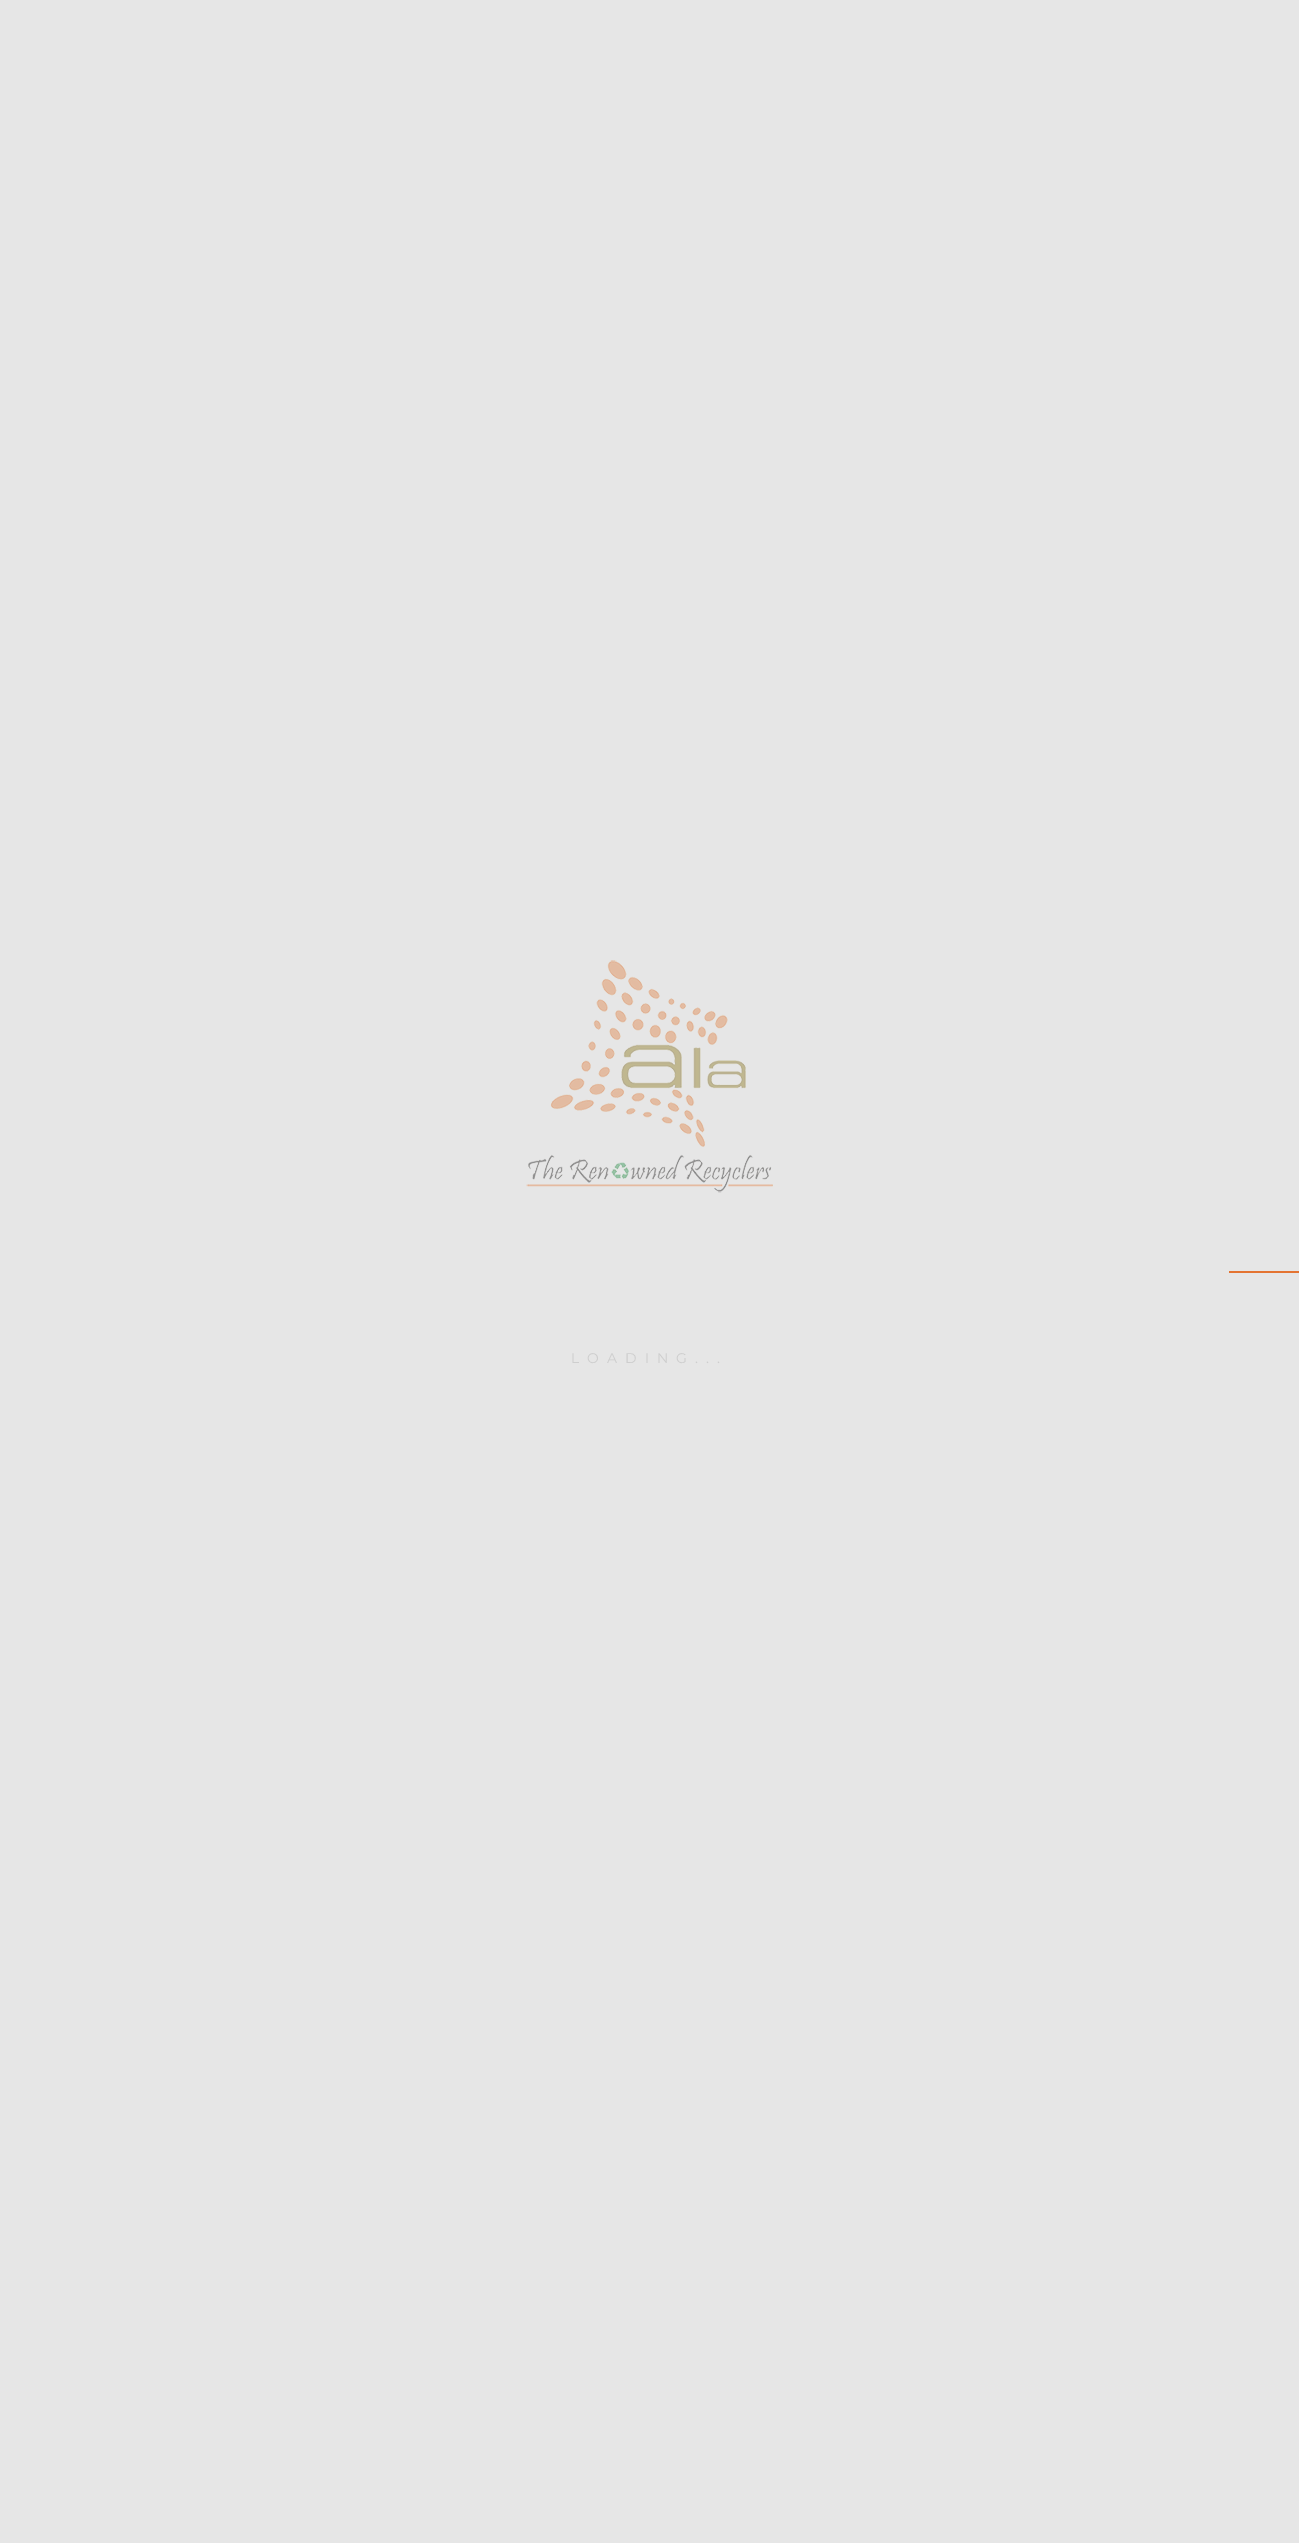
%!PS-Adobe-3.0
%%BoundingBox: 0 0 1299 2543
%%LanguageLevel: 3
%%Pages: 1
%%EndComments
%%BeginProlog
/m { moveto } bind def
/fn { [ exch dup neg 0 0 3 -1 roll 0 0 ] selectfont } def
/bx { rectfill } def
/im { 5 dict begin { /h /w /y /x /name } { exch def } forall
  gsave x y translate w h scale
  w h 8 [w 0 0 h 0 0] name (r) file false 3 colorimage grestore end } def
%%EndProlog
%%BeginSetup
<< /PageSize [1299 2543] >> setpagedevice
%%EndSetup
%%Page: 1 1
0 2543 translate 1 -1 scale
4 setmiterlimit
0.902 setgray
0 0 1299 2543 bx
0.894 0.455 0.196 setrgbcolor
1229 1271 70 2 bx
(image0.raw) 526 960 247 233 im
/Montserrat-Regular 14 fn
0.808 setgray
571 1363 m 8 0 (LOADING...) ashow
showpage
%%EOF
